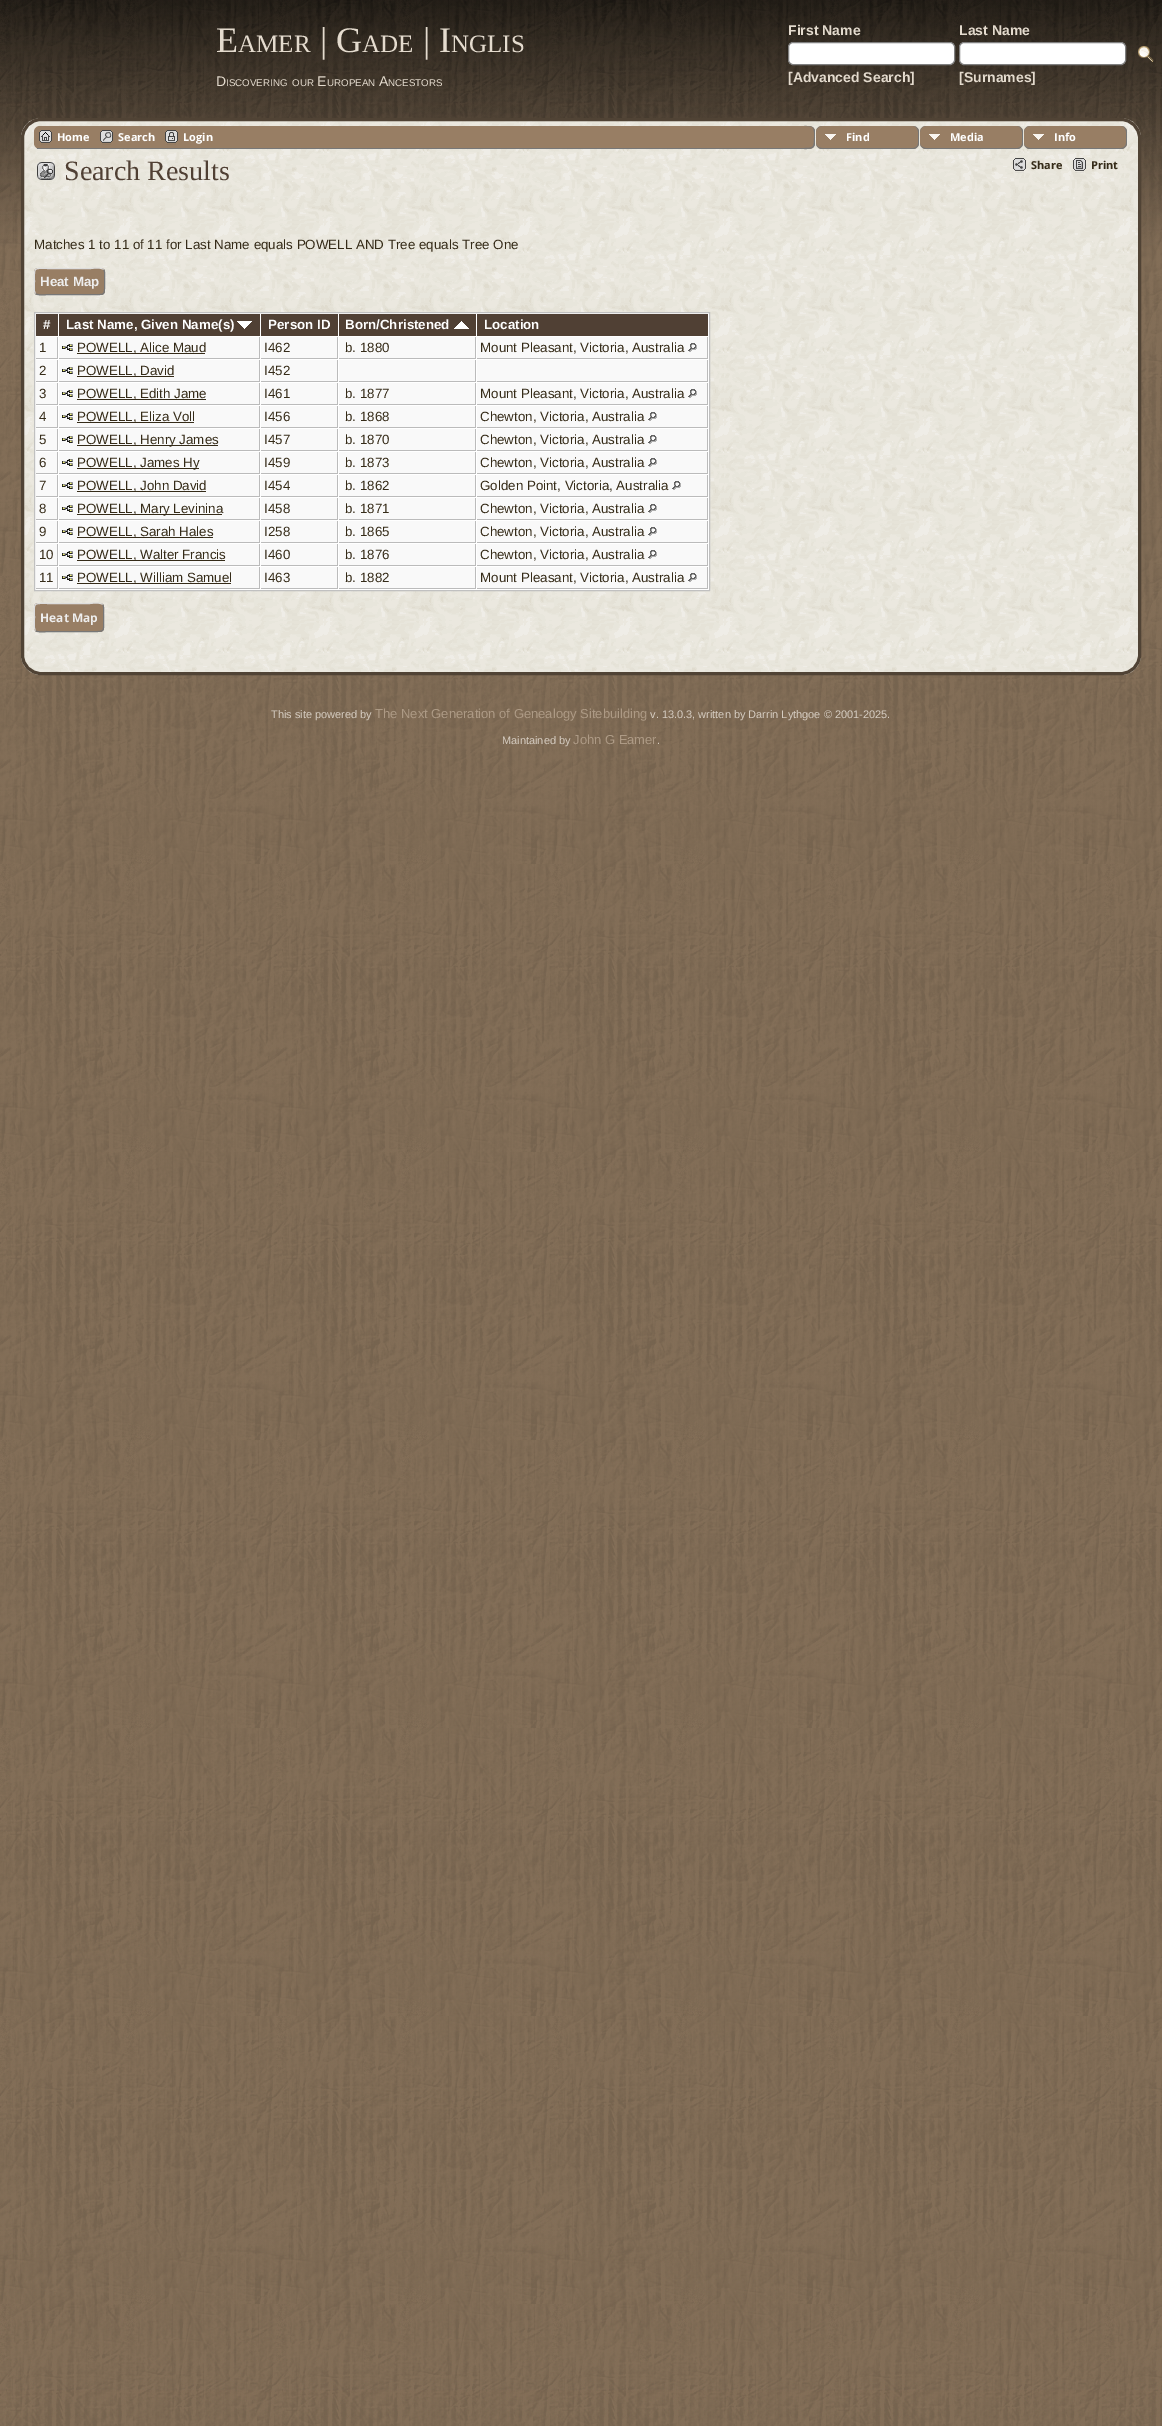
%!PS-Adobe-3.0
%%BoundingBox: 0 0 1162 2426
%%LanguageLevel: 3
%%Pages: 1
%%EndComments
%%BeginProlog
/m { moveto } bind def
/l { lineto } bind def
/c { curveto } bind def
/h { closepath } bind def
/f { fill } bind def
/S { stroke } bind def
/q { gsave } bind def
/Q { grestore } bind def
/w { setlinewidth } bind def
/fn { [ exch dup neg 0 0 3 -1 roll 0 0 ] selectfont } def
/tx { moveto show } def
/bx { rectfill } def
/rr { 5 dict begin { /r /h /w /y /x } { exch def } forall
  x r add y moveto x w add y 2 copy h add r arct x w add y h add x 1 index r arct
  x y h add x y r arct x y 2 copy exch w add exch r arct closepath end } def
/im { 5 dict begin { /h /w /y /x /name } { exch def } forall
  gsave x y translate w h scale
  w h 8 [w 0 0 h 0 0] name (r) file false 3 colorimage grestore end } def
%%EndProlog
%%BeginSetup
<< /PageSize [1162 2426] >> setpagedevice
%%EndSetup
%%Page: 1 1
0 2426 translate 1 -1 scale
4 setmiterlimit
1 setgray
0 0 1162 2426 bx
(image0.raw) 0 0 1162 2426 im
/LiberationSerif-Regular 36 fn
0.894 0.859 0.808 setrgbcolor
(E) 216 52 tx
/LiberationSerif-Regular 25 fn
(AMER) 238 52 tx
/LiberationSerif-Regular 36 fn
(| G) 320 52 tx
/LiberationSerif-Regular 25 fn
(ADE) 362 52 tx
/LiberationSerif-Regular 36 fn
(| I) 423 52 tx
/LiberationSerif-Regular 25 fn
(NGLIS) 451 52 tx
/LiberationSans-Regular 14 fn
(D) 216 86 tx
/LiberationSans-Regular 9.75 fn
(ISCOVERING) 226 86 tx
(OUR) 292 86 tx
/LiberationSans-Regular 14 fn
(E) 317 86 tx
/LiberationSans-Regular 9.75 fn
(UROPEAN) 327 86 tx
/LiberationSans-Regular 14 fn
(A) 379 86 tx
/LiberationSans-Regular 9.75 fn
(NCESTORS) 388 86 tx
/LiberationSans-Bold 14 fn
(First Name) 788 35 tx
(Last Name) 959 35 tx
1 setgray
788.5 42.5 166 22 4.5 rr q f Q
0.502 setgray
S
1 setgray
959.5 42.5 166 22 4.5 rr q f Q
0.502 setgray
S
(image1.raw) 1138 46 16 16 im
0.894 0.859 0.808 setrgbcolor
([Advanced Search]) 788 82 tx
([Surnames]) 959 82 tx
(image2.raw) 21 118 1120 557 im
0.314 0.263 0.208 setrgbcolor
3 w
22.5 119.5 1117 554 18.5 rr S
0.596 0.494 0.392 setrgbcolor
34 126 1094 23 6 rr f
0.467 setgray
37 148 767 1 bx
(image3.raw) 39 130 13 15 im
/OpenSans-Bold 11 fn
1 setgray
(Home) 57 141 tx
(image4.raw) 100 130 13 15 im
(Search) 118 141 tx
(image5.raw) 165 130 13 15 im
(Login) 183 141 tx
(image6.raw) 809 126 319 23 im
0.596 0.494 0.392 setrgbcolor
804 126 m 809 126 l 812.5 126 815 128.5 815 132 c 815 143 l 815 146.5 812.5 149 809 149 c 804 149 l h f
0.467 setgray
804 126 m 808 126 814 125.5 815 131 c 815 144 l 814 149.5 808 149 804 149 c h 804 126 m 810 126 l 815 127.5 814 134 814 137.5 c 814 147.5 813.5 148 804 148 c h eofill
0.596 0.494 0.392 setrgbcolor
816 126 103 23 6 rr f
(image7.raw) 825 134 11 6 im
0.467 setgray
822 126 m 913 126 l 916 126 919 129 919 132 c 919 143 l 919 146 916 149 913 149 c 822 149 l 819 149 816 146 816 143 c 816 132 l 816 129 819 126 822 126 c h 822 126 m 913 126 l 916 126 918 129 918 132 c 918 143 l 918 146 916 148 913 148 c 822 148 l 819 148 816 146 816 143 c 816 132 l 816 129 819 126 822 126 c h eofill
1 setgray
(Find) 846 141 tx
0.596 0.494 0.392 setrgbcolor
920 126 103 23 6 rr f
(image7.raw) 929 134 11 6 im
0.467 setgray
926 126 m 1017 126 l 1020 126 1023 129 1023 132 c 1023 143 l 1023 146 1020 149 1017 149 c 926 149 l 923 149 920 146 920 143 c 920 132 l 920 129 923 126 926 126 c h 926 126 m 1017 126 l 1020 126 1022 129 1022 132 c 1022 143 l 1022 146 1020 148 1017 148 c 926 148 l 923 148 920 146 920 143 c 920 132 l 920 129 923 126 926 126 c h eofill
1 setgray
(Media) 950 141 tx
0.596 0.494 0.392 setrgbcolor
1024 126 103 23 6 rr f
(image7.raw) 1033 134 11 6 im
0.467 setgray
1030 126 m 1121 126 l 1124 126 1127 129 1127 132 c 1127 143 l 1127 146 1124 149 1121 149 c 1030 149 l 1027 149 1024 146 1024 143 c 1024 132 l 1024 129 1027 126 1030 126 c h 1030 126 m 1121 126 l 1124 126 1126 129 1126 132 c 1126 143 l 1126 146 1124 148 1121 148 c 1030 148 l 1027 148 1024 146 1024 143 c 1024 132 l 1024 129 1027 126 1030 126 c h eofill
1 setgray
(Info) 1054 141 tx
(image8.raw) 37 162 18 18 im
/LiberationSerif-Regular 28 fn
0.314 0.251 0.204 setrgbcolor
(Search Results) 64 180 tx
(image9.raw) 1013 158 13 15 im
/OpenSans-Bold 11 fn
0.208 0.169 0.094 setrgbcolor
(Share) 1031 169 tx
(image10.raw) 1073 158 13 15 im
(Print) 1091 169 tx
/LiberationSans-Regular 13.35 fn
(Matches 1 to 11 of 11 for Last Name equals POWELL AND Tree equals Tree One) 34 249 tx
0.596 0.494 0.392 setrgbcolor
34 268 71 27 4 rr f
0.467 setgray
1 w
103.5 269.5 m 105.5 271.5 104.5 279 104.5 281.5 c 104.5 296.5 106 294.5 90.5 294.5 c 48.5 294.5 l 47.5 294.5 38 296 35.5 293.5 c S
0.867 setgray
35.5 293.5 m 33.5 291.5 34.5 284 34.5 281.5 c 34.5 266.5 33 268.5 48.5 268.5 c 90.5 268.5 l 91.5 268.5 101 267 103.5 269.5 c S
/LiberationSans-Bold 13.35 fn
0.933 setgray
(Heat Map) 40 286 tx
1 setgray
34.5 312.5 m 709.5 312.5 l 709.5 590.5 l 34.5 590.5 l h q f Q
0.753 setgray
S
0.314 0.251 0.204 setrgbcolor
36 314 22 22 bx
1 setgray
(#) 43 329 tx
0.314 0.251 0.204 setrgbcolor
59 314 201 22 bx
1 setgray
(Last Name, Given Name\(s\)) 66 329 tx
(image11.raw) 237 321 15 8 im
0.314 0.251 0.204 setrgbcolor
261 314 77 22 bx
1 setgray
(Person ID) 268 329 tx
0.314 0.251 0.204 setrgbcolor
339 314 137 22 bx
1 setgray
(Born/Christened) 345 329 tx
(image12.raw) 454 321 15 8 im
0.314 0.251 0.204 setrgbcolor
477 314 231 22 bx
1 setgray
(Location) 484 329 tx
0.976 setgray
36 337 21 21 bx
0.733 setgray
57 337 1 22 bx
36 358 22 1 bx
/LiberationSans-Regular 13.35 fn
0.208 0.169 0.094 setrgbcolor
(1) 39 352 tx
0.976 setgray
59 337 200 21 bx
0.733 setgray
259 337 1 22 bx
59 358 201 1 bx
(image13.raw) 62 344 11 7 im
0.208 0.169 0.094 setrgbcolor
77 353 128 1 bx
(POWELL, Alice Maud) 77 352 tx
0.976 setgray
261 337 76 21 bx
0.733 setgray
337 337 1 22 bx
261 358 77 1 bx
0.208 0.169 0.094 setrgbcolor
(I462) 264 352 tx
0.976 setgray
339 337 136 21 bx
0.733 setgray
475 337 1 22 bx
339 358 137 1 bx
0.208 0.169 0.094 setrgbcolor
(b. 1880) 345 352 tx
0.976 setgray
477 337 230 21 bx
0.733 setgray
707 337 1 22 bx
477 358 231 1 bx
0.208 0.169 0.094 setrgbcolor
(Mount Pleasant, Victoria, Australia) 480 352 tx
(image14.raw) 688 343 9 9 im
0.976 setgray
36 360 21 21 bx
0.733 setgray
57 360 1 22 bx
36 381 22 1 bx
0.208 0.169 0.094 setrgbcolor
(2) 39 375 tx
0.976 setgray
59 360 200 21 bx
0.733 setgray
259 360 1 22 bx
59 381 201 1 bx
(image13.raw) 62 367 11 7 im
0.208 0.169 0.094 setrgbcolor
77 376 97 1 bx
(POWELL, David) 77 375 tx
0.976 setgray
261 360 76 21 bx
0.733 setgray
337 360 1 22 bx
261 381 77 1 bx
0.208 0.169 0.094 setrgbcolor
(I452) 264 375 tx
0.976 setgray
339 360 136 21 bx
0.733 setgray
475 360 1 22 bx
339 381 137 1 bx
0.976 setgray
477 360 230 21 bx
0.733 setgray
707 360 1 22 bx
477 381 231 1 bx
0.976 setgray
36 383 21 21 bx
0.733 setgray
57 383 1 22 bx
36 404 22 1 bx
0.208 0.169 0.094 setrgbcolor
(3) 39 398 tx
0.976 setgray
59 383 200 21 bx
0.733 setgray
259 383 1 22 bx
59 404 201 1 bx
(image13.raw) 62 390 11 7 im
0.208 0.169 0.094 setrgbcolor
77 399 129 1 bx
(POWELL, Edith Jame) 77 398 tx
0.976 setgray
261 383 76 21 bx
0.733 setgray
337 383 1 22 bx
261 404 77 1 bx
0.208 0.169 0.094 setrgbcolor
(I461) 264 398 tx
0.976 setgray
339 383 136 21 bx
0.733 setgray
475 383 1 22 bx
339 404 137 1 bx
0.208 0.169 0.094 setrgbcolor
(b. 1877) 345 398 tx
0.976 setgray
477 383 230 21 bx
0.733 setgray
707 383 1 22 bx
477 404 231 1 bx
0.208 0.169 0.094 setrgbcolor
(Mount Pleasant, Victoria, Australia) 480 398 tx
(image14.raw) 688 389 9 9 im
0.976 setgray
36 406 21 21 bx
0.733 setgray
57 406 1 22 bx
36 427 22 1 bx
0.208 0.169 0.094 setrgbcolor
(4) 39 421 tx
0.976 setgray
59 406 200 21 bx
0.733 setgray
259 406 1 22 bx
59 427 201 1 bx
(image13.raw) 62 413 11 7 im
0.208 0.169 0.094 setrgbcolor
77 422 117 1 bx
(POWELL, Eliza Voll) 77 421 tx
0.976 setgray
261 406 76 21 bx
0.733 setgray
337 406 1 22 bx
261 427 77 1 bx
0.208 0.169 0.094 setrgbcolor
(I456) 264 421 tx
0.976 setgray
339 406 136 21 bx
0.733 setgray
475 406 1 22 bx
339 427 137 1 bx
0.208 0.169 0.094 setrgbcolor
(b. 1868) 345 421 tx
0.976 setgray
477 406 230 21 bx
0.733 setgray
707 406 1 22 bx
477 427 231 1 bx
0.208 0.169 0.094 setrgbcolor
(Chewton, Victoria, Australia) 480 421 tx
(image14.raw) 648 412 9 9 im
0.976 setgray
36 429 21 21 bx
0.733 setgray
57 429 1 22 bx
36 450 22 1 bx
0.208 0.169 0.094 setrgbcolor
(5) 39 444 tx
0.976 setgray
59 429 200 21 bx
0.733 setgray
259 429 1 22 bx
59 450 201 1 bx
(image13.raw) 62 436 11 7 im
0.208 0.169 0.094 setrgbcolor
77 445 141 1 bx
(POWELL, Henry James) 77 444 tx
0.976 setgray
261 429 76 21 bx
0.733 setgray
337 429 1 22 bx
261 450 77 1 bx
0.208 0.169 0.094 setrgbcolor
(I457) 264 444 tx
0.976 setgray
339 429 136 21 bx
0.733 setgray
475 429 1 22 bx
339 450 137 1 bx
0.208 0.169 0.094 setrgbcolor
(b. 1870) 345 444 tx
0.976 setgray
477 429 230 21 bx
0.733 setgray
707 429 1 22 bx
477 450 231 1 bx
0.208 0.169 0.094 setrgbcolor
(Chewton, Victoria, Australia) 480 444 tx
(image14.raw) 648 435 9 9 im
0.976 setgray
36 452 21 21 bx
0.733 setgray
57 452 1 22 bx
36 473 22 1 bx
0.208 0.169 0.094 setrgbcolor
(6) 39 467 tx
0.976 setgray
59 452 200 21 bx
0.733 setgray
259 452 1 22 bx
59 473 201 1 bx
(image13.raw) 62 459 11 7 im
0.208 0.169 0.094 setrgbcolor
77 468 122 1 bx
(POWELL, James Hy) 77 467 tx
0.976 setgray
261 452 76 21 bx
0.733 setgray
337 452 1 22 bx
261 473 77 1 bx
0.208 0.169 0.094 setrgbcolor
(I459) 264 467 tx
0.976 setgray
339 452 136 21 bx
0.733 setgray
475 452 1 22 bx
339 473 137 1 bx
0.208 0.169 0.094 setrgbcolor
(b. 1873) 345 467 tx
0.976 setgray
477 452 230 21 bx
0.733 setgray
707 452 1 22 bx
477 473 231 1 bx
0.208 0.169 0.094 setrgbcolor
(Chewton, Victoria, Australia) 480 467 tx
(image14.raw) 648 458 9 9 im
0.976 setgray
36 475 21 21 bx
0.733 setgray
57 475 1 22 bx
36 496 22 1 bx
0.208 0.169 0.094 setrgbcolor
(7) 39 490 tx
0.976 setgray
59 475 200 21 bx
0.733 setgray
259 475 1 22 bx
59 496 201 1 bx
(image13.raw) 62 482 11 7 im
0.208 0.169 0.094 setrgbcolor
77 491 129 1 bx
(POWELL, John David) 77 490 tx
0.976 setgray
261 475 76 21 bx
0.733 setgray
337 475 1 22 bx
261 496 77 1 bx
0.208 0.169 0.094 setrgbcolor
(I454) 264 490 tx
0.976 setgray
339 475 136 21 bx
0.733 setgray
475 475 1 22 bx
339 496 137 1 bx
0.208 0.169 0.094 setrgbcolor
(b. 1862) 345 490 tx
0.976 setgray
477 475 230 21 bx
0.733 setgray
707 475 1 22 bx
477 496 231 1 bx
0.208 0.169 0.094 setrgbcolor
(Golden Point, Victoria, Australia) 480 490 tx
(image14.raw) 672 481 9 9 im
0.976 setgray
36 498 21 21 bx
0.733 setgray
57 498 1 22 bx
36 519 22 1 bx
0.208 0.169 0.094 setrgbcolor
(8) 39 513 tx
0.976 setgray
59 498 200 21 bx
0.733 setgray
259 498 1 22 bx
59 519 201 1 bx
(image13.raw) 62 505 11 7 im
0.208 0.169 0.094 setrgbcolor
77 514 145 1 bx
(POWELL, Mary Levinina) 77 513 tx
0.976 setgray
261 498 76 21 bx
0.733 setgray
337 498 1 22 bx
261 519 77 1 bx
0.208 0.169 0.094 setrgbcolor
(I458) 264 513 tx
0.976 setgray
339 498 136 21 bx
0.733 setgray
475 498 1 22 bx
339 519 137 1 bx
0.208 0.169 0.094 setrgbcolor
(b. 1871) 345 513 tx
0.976 setgray
477 498 230 21 bx
0.733 setgray
707 498 1 22 bx
477 519 231 1 bx
0.208 0.169 0.094 setrgbcolor
(Chewton, Victoria, Australia) 480 513 tx
(image14.raw) 648 504 9 9 im
0.976 setgray
36 521 21 21 bx
0.733 setgray
57 521 1 22 bx
36 542 22 1 bx
0.208 0.169 0.094 setrgbcolor
(9) 39 536 tx
0.976 setgray
59 521 200 21 bx
0.733 setgray
259 521 1 22 bx
59 542 201 1 bx
(image13.raw) 62 528 11 7 im
0.208 0.169 0.094 setrgbcolor
77 537 136 1 bx
(POWELL, Sarah Hales) 77 536 tx
0.976 setgray
261 521 76 21 bx
0.733 setgray
337 521 1 22 bx
261 542 77 1 bx
0.208 0.169 0.094 setrgbcolor
(I258) 264 536 tx
0.976 setgray
339 521 136 21 bx
0.733 setgray
475 521 1 22 bx
339 542 137 1 bx
0.208 0.169 0.094 setrgbcolor
(b. 1865) 345 536 tx
0.976 setgray
477 521 230 21 bx
0.733 setgray
707 521 1 22 bx
477 542 231 1 bx
0.208 0.169 0.094 setrgbcolor
(Chewton, Victoria, Australia) 480 536 tx
(image14.raw) 648 527 9 9 im
0.976 setgray
36 544 21 21 bx
0.733 setgray
57 544 1 22 bx
36 565 22 1 bx
0.208 0.169 0.094 setrgbcolor
(10) 39 559 tx
0.976 setgray
59 544 200 21 bx
0.733 setgray
259 544 1 22 bx
59 565 201 1 bx
(image13.raw) 62 551 11 7 im
0.208 0.169 0.094 setrgbcolor
77 560 148 1 bx
(POWELL, Walter Francis) 77 559 tx
0.976 setgray
261 544 76 21 bx
0.733 setgray
337 544 1 22 bx
261 565 77 1 bx
0.208 0.169 0.094 setrgbcolor
(I460) 264 559 tx
0.976 setgray
339 544 136 21 bx
0.733 setgray
475 544 1 22 bx
339 565 137 1 bx
0.208 0.169 0.094 setrgbcolor
(b. 1876) 345 559 tx
0.976 setgray
477 544 230 21 bx
0.733 setgray
707 544 1 22 bx
477 565 231 1 bx
0.208 0.169 0.094 setrgbcolor
(Chewton, Victoria, Australia) 480 559 tx
(image14.raw) 648 550 9 9 im
0.976 setgray
36 567 21 21 bx
0.733 setgray
57 567 1 22 bx
36 588 22 1 bx
0.208 0.169 0.094 setrgbcolor
(11) 39 582 tx
0.976 setgray
59 567 200 21 bx
0.733 setgray
259 567 1 22 bx
59 588 201 1 bx
(image13.raw) 62 574 11 7 im
0.208 0.169 0.094 setrgbcolor
77 583 154 1 bx
(POWELL, William Samuel) 77 582 tx
0.976 setgray
261 567 76 21 bx
0.733 setgray
337 567 1 22 bx
261 588 77 1 bx
0.208 0.169 0.094 setrgbcolor
(I463) 264 582 tx
0.976 setgray
339 567 136 21 bx
0.733 setgray
475 567 1 22 bx
339 588 137 1 bx
0.208 0.169 0.094 setrgbcolor
(b. 1882) 345 582 tx
0.976 setgray
477 567 230 21 bx
0.733 setgray
707 567 1 22 bx
477 588 231 1 bx
0.208 0.169 0.094 setrgbcolor
(Mount Pleasant, Victoria, Australia) 480 582 tx
(image14.raw) 688 573 9 9 im
0.596 0.494 0.392 setrgbcolor
34 603 70 29 4 rr f
0.467 setgray
102.5 604.5 m 104.5 606.5 103.5 615 103.5 617.5 c 103.5 633 106 631.5 89.5 631.5 c 48.5 631.5 l 47 631.5 38 633 35.5 630.5 c S
0.867 setgray
35.5 630.5 m 33.5 628.5 34.5 620 34.5 617.5 c 34.5 602 32 603.5 48.5 603.5 c 89.5 603.5 l 91 603.5 100 602 102.5 604.5 c S
/OpenSans-Bold 12 fn
0.933 setgray
(Heat Map) 40 622 tx
/LiberationSans-Regular 11 fn
0.839 0.804 0.761 setrgbcolor
(This site powered by) 271 718 tx
/LiberationSans-Regular 13 fn
0.678 0.604 0.522 setrgbcolor
(The Next Generation of Genealogy Sitebuilding) 375 718 tx
/LiberationSans-Regular 11 fn
0.839 0.804 0.761 setrgbcolor
(v. 13.0.3, written by Darrin Lythgoe © 2001-2025.) 650 718 tx
(Maintained by) 502 744 tx
/LiberationSans-Regular 13 fn
0.678 0.604 0.522 setrgbcolor
(John G Eamer) 573 744 tx
/LiberationSans-Regular 11 fn
0.839 0.804 0.761 setrgbcolor
(.) 657 744 tx
showpage
%%EOF
